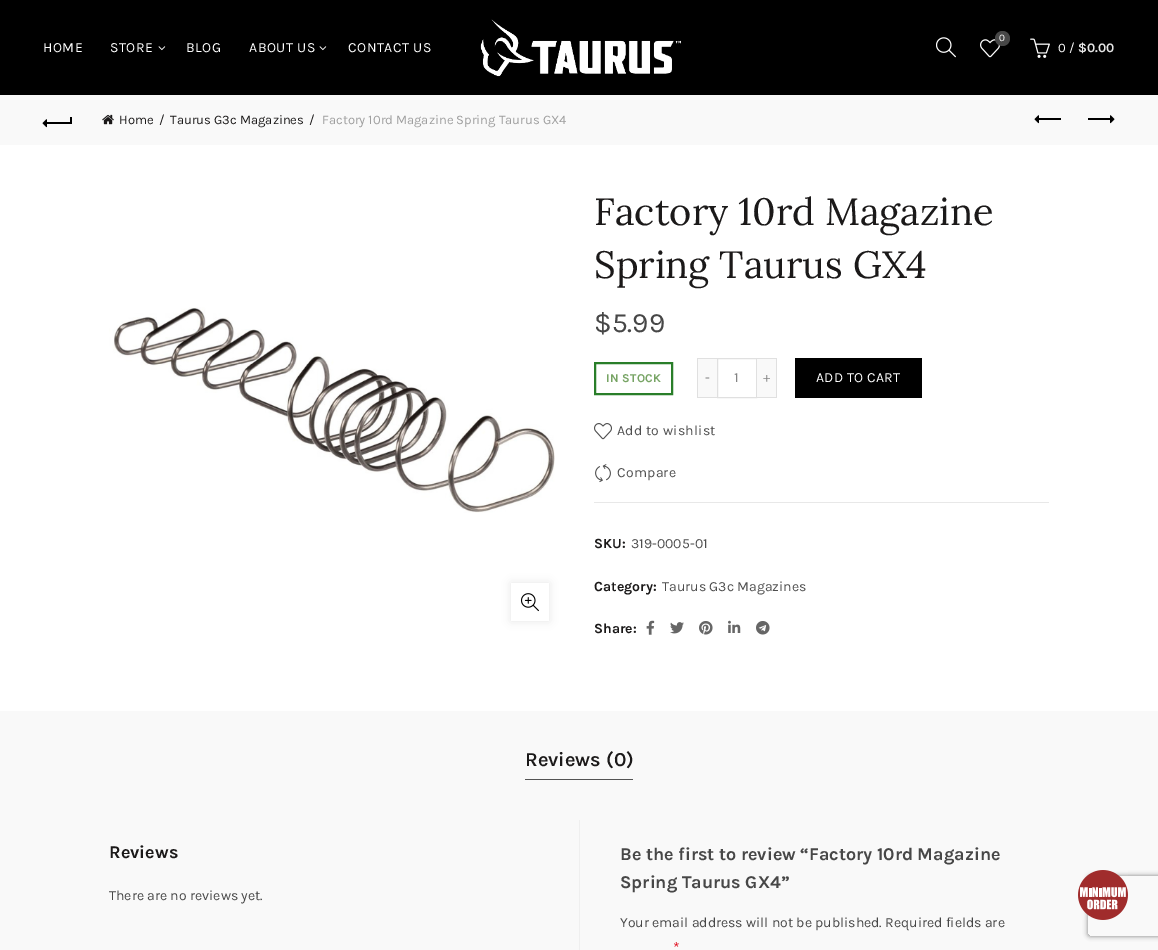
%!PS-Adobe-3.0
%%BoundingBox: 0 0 1158 950
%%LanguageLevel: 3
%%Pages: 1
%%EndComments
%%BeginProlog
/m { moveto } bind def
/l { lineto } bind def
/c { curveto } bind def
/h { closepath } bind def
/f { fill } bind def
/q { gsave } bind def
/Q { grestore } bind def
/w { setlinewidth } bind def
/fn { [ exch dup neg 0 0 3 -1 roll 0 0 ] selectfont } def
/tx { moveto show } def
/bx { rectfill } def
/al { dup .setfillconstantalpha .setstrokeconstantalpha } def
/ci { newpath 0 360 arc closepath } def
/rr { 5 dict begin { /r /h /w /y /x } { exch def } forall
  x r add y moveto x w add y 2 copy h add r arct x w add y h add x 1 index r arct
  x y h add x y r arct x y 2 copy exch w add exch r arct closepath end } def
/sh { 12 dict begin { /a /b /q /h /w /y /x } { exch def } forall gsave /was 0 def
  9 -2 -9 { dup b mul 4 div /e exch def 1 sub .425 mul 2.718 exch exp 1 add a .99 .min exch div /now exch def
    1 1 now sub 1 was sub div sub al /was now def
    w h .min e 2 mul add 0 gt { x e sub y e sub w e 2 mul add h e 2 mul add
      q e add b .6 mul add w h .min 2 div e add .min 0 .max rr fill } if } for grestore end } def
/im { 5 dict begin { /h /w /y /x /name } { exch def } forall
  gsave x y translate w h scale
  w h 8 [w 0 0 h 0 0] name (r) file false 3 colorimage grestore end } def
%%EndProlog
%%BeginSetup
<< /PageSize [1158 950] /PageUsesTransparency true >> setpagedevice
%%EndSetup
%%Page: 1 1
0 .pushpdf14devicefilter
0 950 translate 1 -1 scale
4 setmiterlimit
1 setgray
0 0 1158 950 bx
0 setgray
0 0 1158 95 bx
/Karla-Regular 14 fn
1 setgray
43 52 m 0.5 0 (HOME) ashow
110 52 m 0.5 0 (STORE) ashow
(image0.raw) 158 46 8 5 im
186 52 m 0.5 0 (BLOG) ashow
249 52 m 0.5 0 (ABOUT US) ashow
(image0.raw) 319 46 8 5 im
348 52 m 0.5 0 (CONTACT US) ashow
(image1.raw) 480 19 201 58 im
(image2.raw) 936 37 20 21 im
(image3.raw) 980 39 20 19 im
0.278 setgray
1002.5 38.5 7.5 ci f
/Karla-Regular 10 fn
1 setgray
(0) 999 41 tx
(image4.raw) 1030 38 20 20 im
/Karla-Regular 13 fn
(0 /) 1058 52 tx
/Karla-Bold 13 fn
0.902 setgray
($0.00) 1078 52 tx
0.976 setgray
0 95 1158 50 bx
0 setgray
46 122 25 2 bx
(image5.raw) 42 119 5 9 im
70 117 2 7 bx
(image6.raw) 102 114 12 11 im
/Karla-Regular 13 fn
0.106 0.098 0.098 setrgbcolor
(Home) 119 124 tx
(/) 159 124 tx
(Taurus G3c Magazines) 170 124 tx
(/) 309 124 tx
0.62 setgray
(Factory 10rd Magazine Spring Taurus GX4) 322 124 tx
0 setgray
1038 118 23 2 bx
(image5.raw) 1034 115 5 9 im
1088 118 23 2 bx
(image7.raw) 1110 115 5 9 im
(image8.raw) 109 307 446 206 im
q
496 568 m 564 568 l 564 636 l 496 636 l h 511 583 m 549 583 l 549 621 l 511 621 l h eoclip newpath
511 583 38 38 0 4.5 0.1 sh
Q
(image9.raw) 520 593 19 19 im
/Lora-Regular 38 fn
0.106 0.098 0.098 setrgbcolor
(Factory 10rd Magazine) 594 225 tx
(Spring Taurus GX4) 594 278 tx
/Karla-Regular 28 fn
0.278 setgray
($5.99) 594 332 tx
0.161 0.494 0.161 setrgbcolor
2 w
595 363 77 31 rectstroke
/Karla-Bold 12 fn
0.467 0.643 0.392 setrgbcolor
606 382 m 0.25 0 (IN STOCK) ashow
0.976 setgray
698 359 19 38 bx
0.878 setgray
697 358 20 1 bx
697 397 20 1 bx
697 358 1 40 bx
/Karla-Regular 14 fn
0.518 setgray
(-) 705 382 tx
0.878 setgray
1 w
717.5 358.5 39 39 rectstroke
0.518 setgray
(1) 734 382 tx
0.976 setgray
757 359 19 38 bx
0.878 setgray
757 358 20 1 bx
776 358 1 40 bx
757 397 20 1 bx
0.518 setgray
(+) 763 382 tx
0 setgray
795 358 127 40 bx
1 setgray
816 382 m 0.25 0 (ADD TO CART) ashow
(image10.raw) 594 423 18 17 im
0.306 setgray
617 435 m 0.25 0 (Add to wishlist) ashow
(image11.raw) 595 464 16 19 im
617 477 m 0.25 0 (Compare) ashow
0.91 setgray
594 502 455 1 bx
/Karla-Bold 14 fn
0.106 0.098 0.098 setrgbcolor
(SKU:) 594 548 tx
/Karla-Regular 14 fn
0.306 setgray
(319-0005-01) 631 548 tx
/Karla-Bold 14 fn
0.106 0.098 0.098 setrgbcolor
(Category:) 594 591 tx
/Karla-Regular 14 fn
0.306 setgray
(Taurus G3c Magazines) 662 591 tx
/Karla-Bold 14 fn
0.106 0.098 0.098 setrgbcolor
(Share:) 594 633 tx
(image12.raw) 646 620 9 15 im
(image13.raw) 670 622 14 12 im
(image14.raw) 699 621 14 14 im
(image15.raw) 728 620 13 13 im
(image16.raw) 756 621 14 14 im
0.976 setgray
0 711 1158 239 bx
0.329 setgray
525 779 108 1 bx
/Karla-SemiBold 20 fn
0.106 0.098 0.098 setrgbcolor
(Reviews \(0\)) 525 766 tx
/Karla-Bold 18 fn
(Reviews) 109 858 tx
/Karla-Regular 14 fn
0.278 setgray
(There are no reviews yet.) 109 900 tx
0.937 setgray
579 820 1 130 bx
/Karla-Bold 18 fn
0.278 setgray
(Be the first to review “Factory 10rd Magazine) 620 860 tx
(Spring Taurus GX4”) 620 888 tx
/Karla-Regular 14 fn
(Your email address will not be published. Required fields are) 620 927 tx
/Karla-Regular 16 fn
0.878 0.063 0.125 setrgbcolor
(*) 673 953 tx
q
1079 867 m 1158 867 l 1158 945 l 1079 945 l h 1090 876 m 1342 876 l 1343 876 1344 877 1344 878 c 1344 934 l 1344 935 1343 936 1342 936 c 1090 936 l 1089 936 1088 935 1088 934 c 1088 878 l 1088 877 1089 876 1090 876 c h eoclip newpath
0.502 setgray
1088 876 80 60 2 2.5 1 sh
Q
(image17.raw) 1078 870 50 50 im
.poppdf14devicefilter showpage
%%EOF
